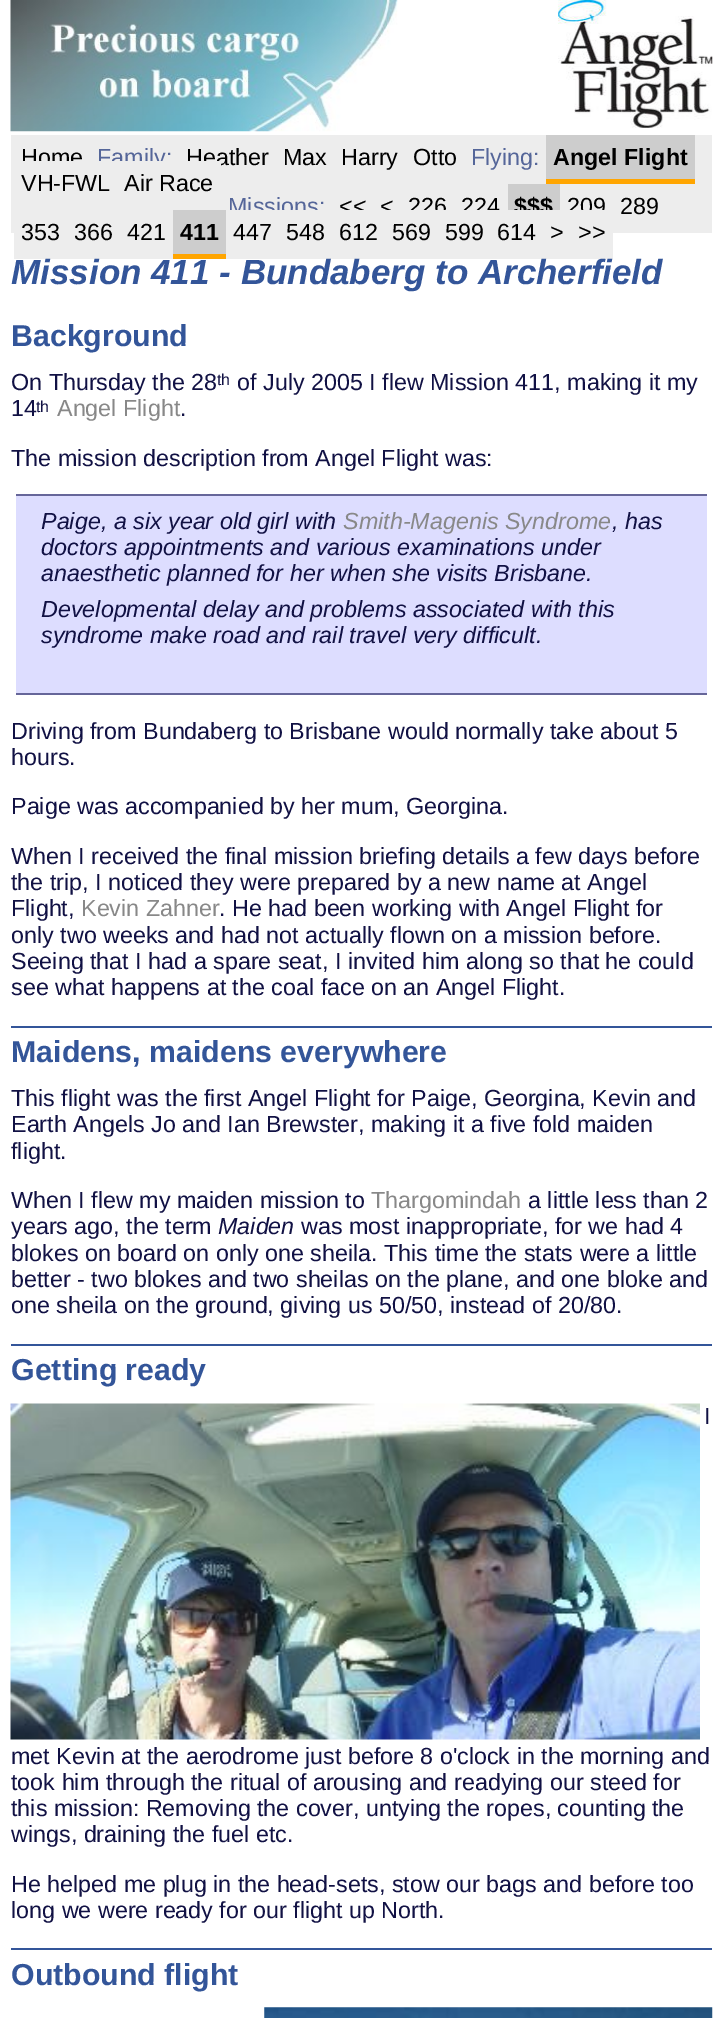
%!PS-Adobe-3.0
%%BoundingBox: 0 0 718 2018
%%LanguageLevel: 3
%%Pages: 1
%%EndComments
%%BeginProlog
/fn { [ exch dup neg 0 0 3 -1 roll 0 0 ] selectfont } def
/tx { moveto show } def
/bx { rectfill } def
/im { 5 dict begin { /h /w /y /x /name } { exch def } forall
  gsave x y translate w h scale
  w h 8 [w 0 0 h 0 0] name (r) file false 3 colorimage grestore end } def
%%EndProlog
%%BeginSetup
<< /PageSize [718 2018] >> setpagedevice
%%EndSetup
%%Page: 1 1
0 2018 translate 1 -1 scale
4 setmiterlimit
1 setgray
0 0 718 2018 bx
(image0.raw) 10 0 388 132 im
(image1.raw) 558 0 155 128 im
0.929 setgray
11 135 701 98 bx
/LiberationSans-Regular 23.3 fn
0 setgray
(Home) 21 165 tx
0.333 0.4 0.6 setrgbcolor
(Family:) 97 165 tx
0 setgray
(Heather) 186 165 tx
(Max) 283 165 tx
(Harry) 341 165 tx
(Otto) 413 165 tx
0.333 0.4 0.6 setrgbcolor
(Flying:) 471 165 tx
0.804 setgray
546 135 149 44 bx
/LiberationSans-Bold 23.3 fn
0 setgray
(Angel Flight) 553 165 tx
1 0.647 0 setrgbcolor
546 179 149 5 bx
/LiberationSans-Regular 23.3 fn
0 setgray
(VH-FWL) 21 191 tx
0.929 setgray
22 161 95 5 bx
0 setgray
(Air Race) 124 191 tx
0.929 setgray
117 161 104 9 bx
0.333 0.4 0.6 setrgbcolor
(Missions:) 228 214 tx
0 setgray
(<<) 339 214 tx
(<) 380 214 tx
(226) 408 214 tx
(224) 461 214 tx
0.804 setgray
508 184 52 26 bx
/LiberationSans-Bold 23.3 fn
0 setgray
($$$) 514 214 tx
/LiberationSans-Regular 23.3 fn
(209) 567 214 tx
(289) 620 214 tx
0.929 setgray
14 233 159 26 bx
0 setgray
(353) 21 240 tx
(366) 74 240 tx
(421) 127 240 tx
0.804 setgray
173 210 53 44 bx
/LiberationSans-Bold 23.3 fn
0 setgray
(411) 180 240 tx
1 0.647 0 setrgbcolor
173 254 53 5 bx
0.929 setgray
226 210 387 49 bx
/LiberationSans-Regular 23.3 fn
0 setgray
(447) 233 240 tx
(548) 286 240 tx
(612) 339 240 tx
(569) 392 240 tx
(599) 445 240 tx
(614) 497 240 tx
(>) 550 240 tx
(>>) 578 240 tx
/LiberationSans-BoldItalic 35 fn
0.2 0.333 0.6 setrgbcolor
(Mission 411 - Bundaberg to Archerfield) 11 284 tx
/LiberationSans-Bold 30.3 fn
(Background) 11 346 tx
/LiberationSans-Regular 23.3 fn
0.067 0.067 0.267 setrgbcolor
(On Thursday the 28) 11 390 tx
/LiberationSans-Regular 16 fn
(th) 217 385 tx
/LiberationSans-Regular 23.3 fn
(of July 2005 I flew Mission 411, making it my) 237 390 tx
(14) 11 416 tx
/LiberationSans-Regular 16 fn
(th) 36 412 tx
/LiberationSans-Regular 23.3 fn
0.533 setgray
(Angel Flight) 57 416 tx
0.067 0.067 0.267 setrgbcolor
(.) 180 416 tx
(The mission description from Angel Flight was:) 11 466 tx
0.867 0.867 1 setrgbcolor
16 496 691 197 bx
0.4 0.4 0.6 setrgbcolor
16 494 691 2 bx
16 693 691 2 bx
/LiberationSans-Italic 23.3 fn
0.067 0.067 0.267 setrgbcolor
(Paige, a six year old girl with) 41 529 tx
0.533 setgray
(Smith-Magenis Syndrome) 343 529 tx
0.067 0.067 0.267 setrgbcolor
(, has) 612 529 tx
(doctors appointments and various examinations under) 41 555 tx
(anaesthetic planned for her when she visits Brisbane.) 41 581 tx
(Developmental delay and problems associated with this) 41 617 tx
(syndrome make road and rail travel very difficult.) 41 643 tx
/LiberationSans-Regular 23.3 fn
(Driving from Bundaberg to Brisbane would normally take about 5) 11 739 tx
(hours.) 11 765 tx
(Paige was accompanied by her mum, Georgina.) 11 814 tx
(When I received the final mission briefing details a few days before) 11 864 tx
(the trip, I noticed they were prepared by a new name at Angel) 11 890 tx
(Flight,) 11 916 tx
0.533 setgray
(Kevin Zahner) 81 916 tx
0.067 0.067 0.267 setrgbcolor
(. He had been working with Angel Flight for) 219 916 tx
(only two weeks and had not actually flown on a mission before.) 11 943 tx
(Seeing that I had a spare seat, I invited him along so that he could) 11 969 tx
(see what happens at the coal face on an Angel Flight.) 11 995 tx
0.2 0.333 0.6 setrgbcolor
11 1026 701 2 bx
/LiberationSans-Bold 30.3 fn
(Maidens, maidens everywhere) 11 1062 tx
/LiberationSans-Regular 23.3 fn
0.067 0.067 0.267 setrgbcolor
(This flight was the first Angel Flight for Paige, Georgina, Kevin and) 11 1106 tx
(Earth Angels Jo and Ian Brewster, making it a five fold maiden) 11 1132 tx
(flight.) 11 1159 tx
(When I flew my maiden mission to) 11 1208 tx
0.533 setgray
(Thargomindah) 371 1208 tx
0.067 0.067 0.267 setrgbcolor
(a little less than 2) 528 1208 tx
(years ago, the term) 11 1234 tx
/LiberationSans-Italic 23.3 fn
(Maiden) 218 1234 tx
/LiberationSans-Regular 23.3 fn
(was most inappropriate, for we had 4) 301 1234 tx
(blokes on board on only one sheila. This time the stats were a little) 11 1261 tx
(better - two blokes and two sheilas on the plane, and one bloke and) 11 1287 tx
(one sheila on the ground, giving us 50/50, instead of 20/80.) 11 1313 tx
0.2 0.333 0.6 setrgbcolor
11 1344 701 2 bx
/LiberationSans-Bold 30.3 fn
(Getting ready) 11 1380 tx
(image2.raw) 10 1403 690 337 im
/LiberationSans-Regular 23.3 fn
0.067 0.067 0.267 setrgbcolor
(I) 704 1424 tx
(met Kevin at the aerodrome just before 8 o'clock in the morning and) 11 1764 tx
(took him through the ritual of arousing and readying our steed for) 11 1790 tx
(this mission: Removing the cover, untying the ropes, counting the) 11 1816 tx
(wings, draining the fuel etc.) 11 1842 tx
(He helped me plug in the head-sets, stow our bags and before too) 11 1892 tx
(long we were ready for our flight up North.) 11 1918 tx
0.2 0.333 0.6 setrgbcolor
11 1948 701 2 bx
/LiberationSans-Bold 30.3 fn
(Outbound flight) 11 1985 tx
(image3.raw) 264 2007 449 11 im
showpage
%%EOF
